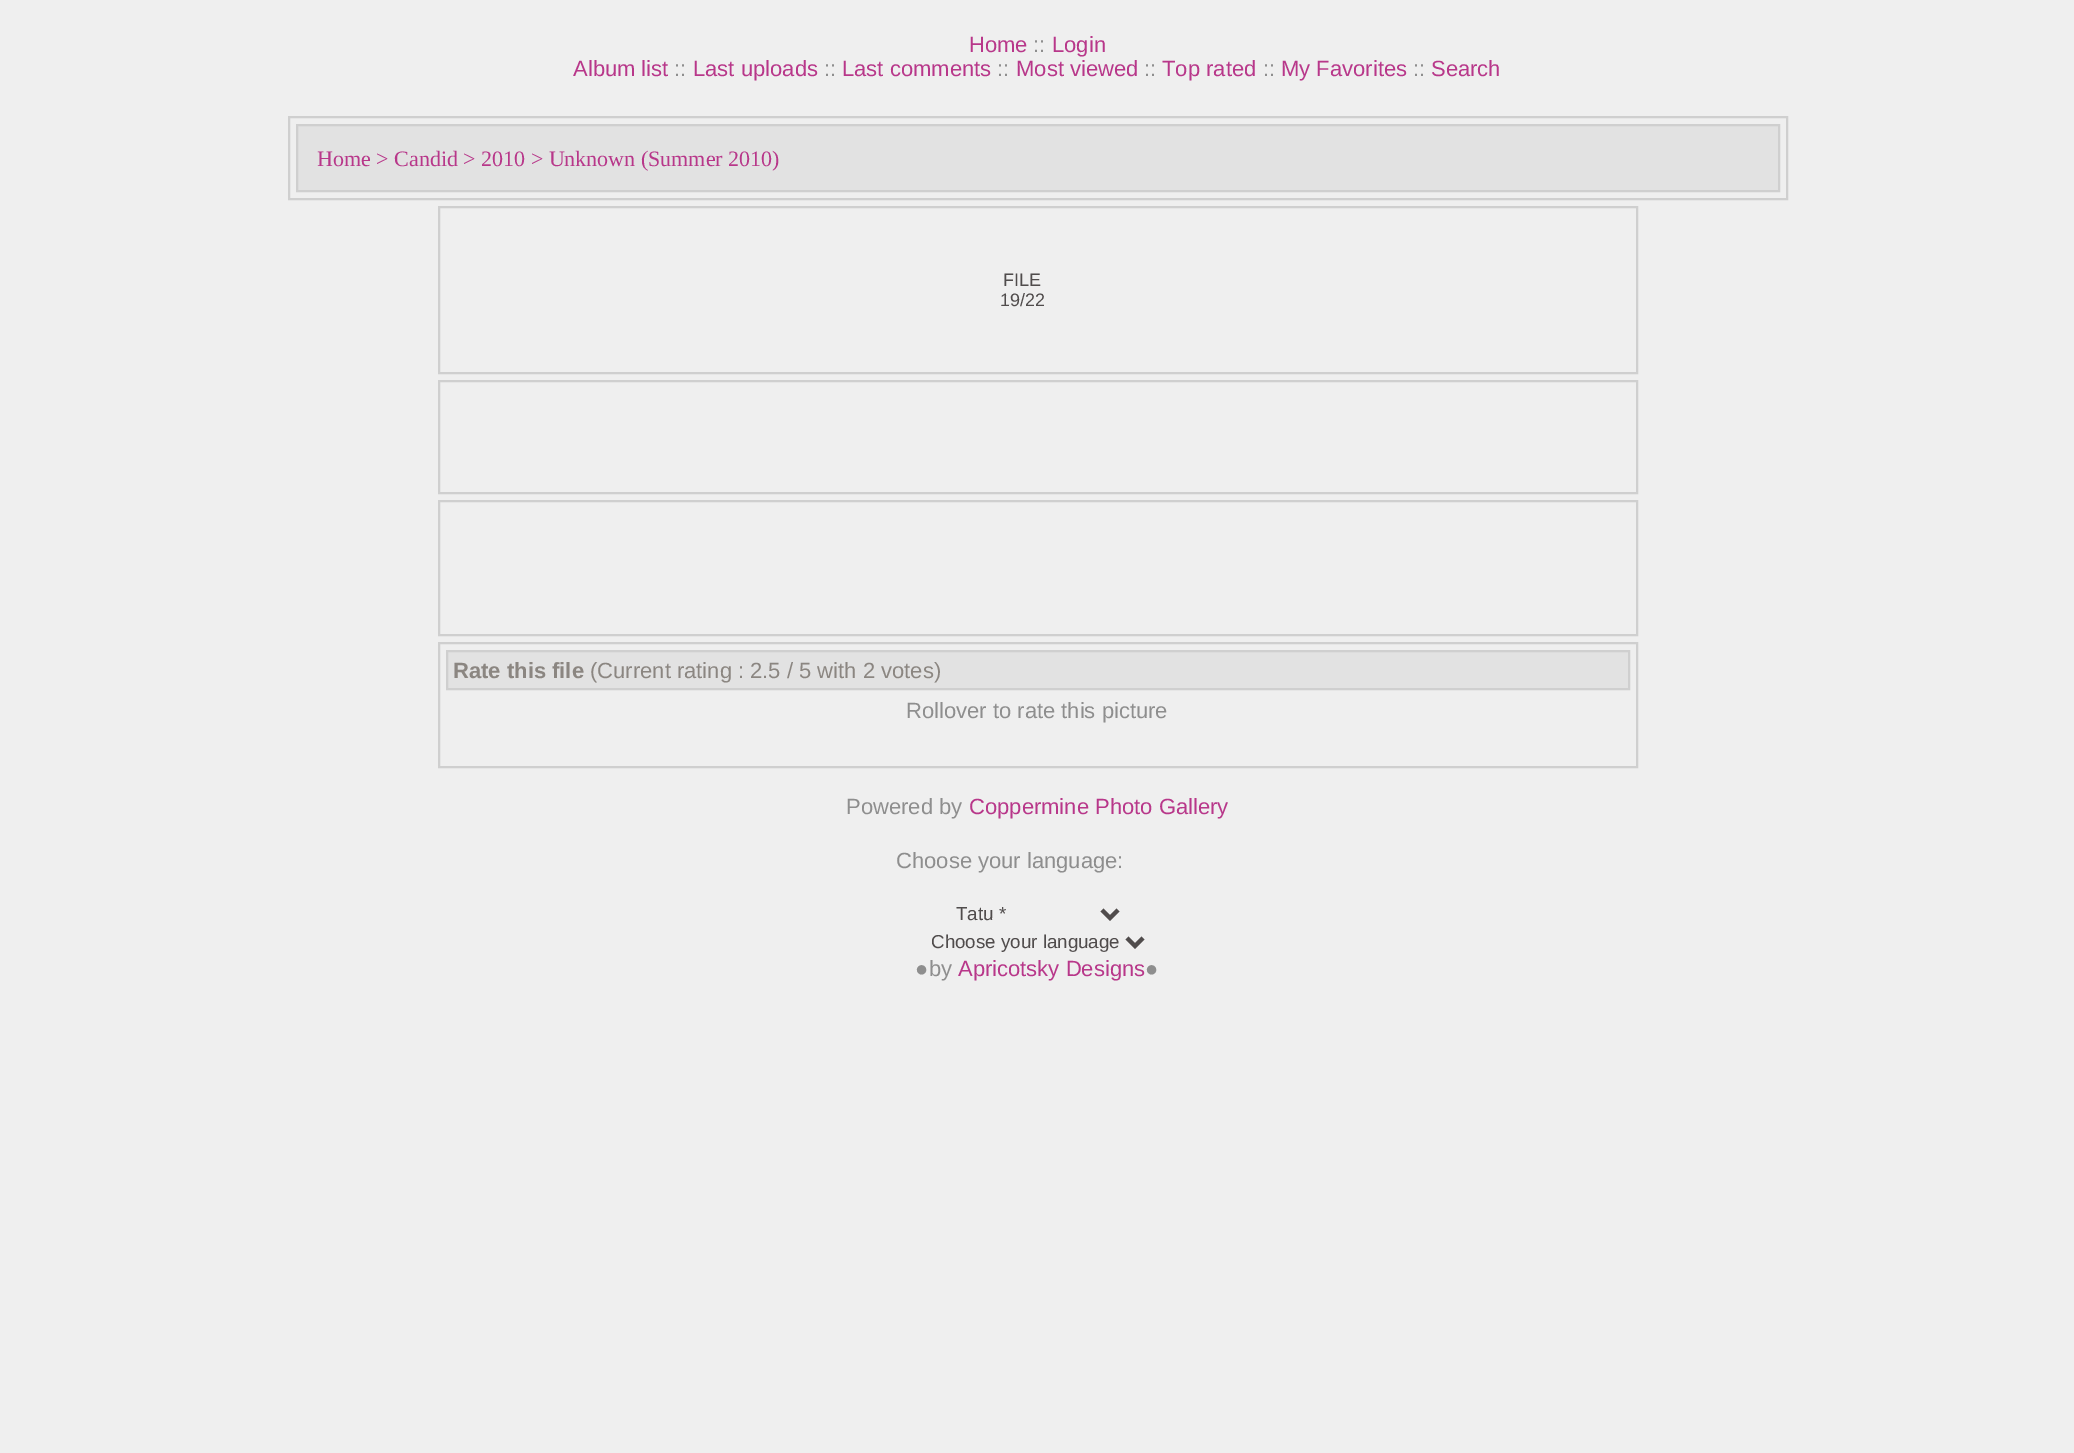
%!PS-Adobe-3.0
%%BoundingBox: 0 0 2074 1453
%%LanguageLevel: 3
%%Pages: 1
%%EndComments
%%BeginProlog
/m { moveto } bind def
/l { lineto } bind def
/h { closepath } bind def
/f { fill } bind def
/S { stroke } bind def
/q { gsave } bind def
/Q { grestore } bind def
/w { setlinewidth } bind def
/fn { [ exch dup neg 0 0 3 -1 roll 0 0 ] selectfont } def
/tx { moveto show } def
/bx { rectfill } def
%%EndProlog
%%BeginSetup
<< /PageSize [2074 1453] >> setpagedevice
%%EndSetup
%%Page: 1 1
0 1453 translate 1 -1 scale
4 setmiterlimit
0.937 setgray
0 0 2074 1453 bx
/LiberationSans-Regular 22 fn
0.722 0.216 0.541 setrgbcolor
(Home) 969 52 tx
0.557 setgray
(::) 1033 52 tx
0.722 0.216 0.541 setrgbcolor
(Login) 1052 52 tx
(Album list) 573 76 tx
0.557 setgray
(::) 674 76 tx
0.722 0.216 0.541 setrgbcolor
(Last uploads) 693 76 tx
0.557 setgray
(::) 824 76 tx
0.722 0.216 0.541 setrgbcolor
(Last comments) 842 76 tx
0.557 setgray
(::) 997 76 tx
0.722 0.216 0.541 setrgbcolor
(Most viewed) 1016 76 tx
0.557 setgray
(::) 1144 76 tx
0.722 0.216 0.541 setrgbcolor
(Top rated) 1162 76 tx
0.557 setgray
(::) 1263 76 tx
0.722 0.216 0.541 setrgbcolor
(My Favorites) 1281 76 tx
0.557 setgray
(::) 1413 76 tx
0.722 0.216 0.541 setrgbcolor
(Search) 1431 76 tx
0.812 setgray
2 w
289 117 1498 82 rectstroke
0.886 setgray
297 125 m 1779 125 l 1779 191 l 297 191 l h q f Q
0.812 setgray
S
/LiberationSerif-Regular 22 fn
0.722 0.216 0.541 setrgbcolor
(Home > Candid > 2010 > Unknown \(Summer 2010\)) 317 166 tx
0.812 setgray
439 207 1198 166 rectstroke
/LiberationSans-Regular 18 fn
0.314 0.298 0.298 setrgbcolor
(FILE) 1003 286 tx
(19/22) 1000 306 tx
0.812 setgray
439 381 1198 112 rectstroke
439 501 1198 134 rectstroke
439 643 1198 124 rectstroke
0.886 setgray
447 651 m 1629 651 l 1629 689 l 447 689 l h q f Q
0.812 setgray
S
/LiberationSans-Bold 22 fn
0.545 0.525 0.506 setrgbcolor
(Rate this file) 453 678 tx
/LiberationSans-Regular 22 fn
(\(Current rating : 2.5 / 5 with 2 votes\)) 590 678 tx
0.557 setgray
(Rollover to rate this picture) 906 718 tx
(Powered by) 846 814 tx
0.722 0.216 0.541 setrgbcolor
(Coppermine Photo Gallery) 969 814 tx
0.557 setgray
(Choose your language:) 896 868 tx
0.314 0.298 0.298 setrgbcolor
4 w
1102 910 m 1110 918 l 1118 910 l S
/LiberationSans-Regular 18.75 fn
(Tatu *) 956 920 tx
1127 938 m 1135 946 l 1143 938 l S
(Choose your language) 931 948 tx
/LiberationSerif-Regular 22 fn
0.557 setgray
(●) 915 976 tx
/LiberationSans-Regular 22 fn
(by) 929 976 tx
0.722 0.216 0.541 setrgbcolor
(Apricotsky Designs) 958 976 tx
/LiberationSerif-Regular 22 fn
0.557 setgray
(●) 1145 976 tx
showpage
%%EOF
